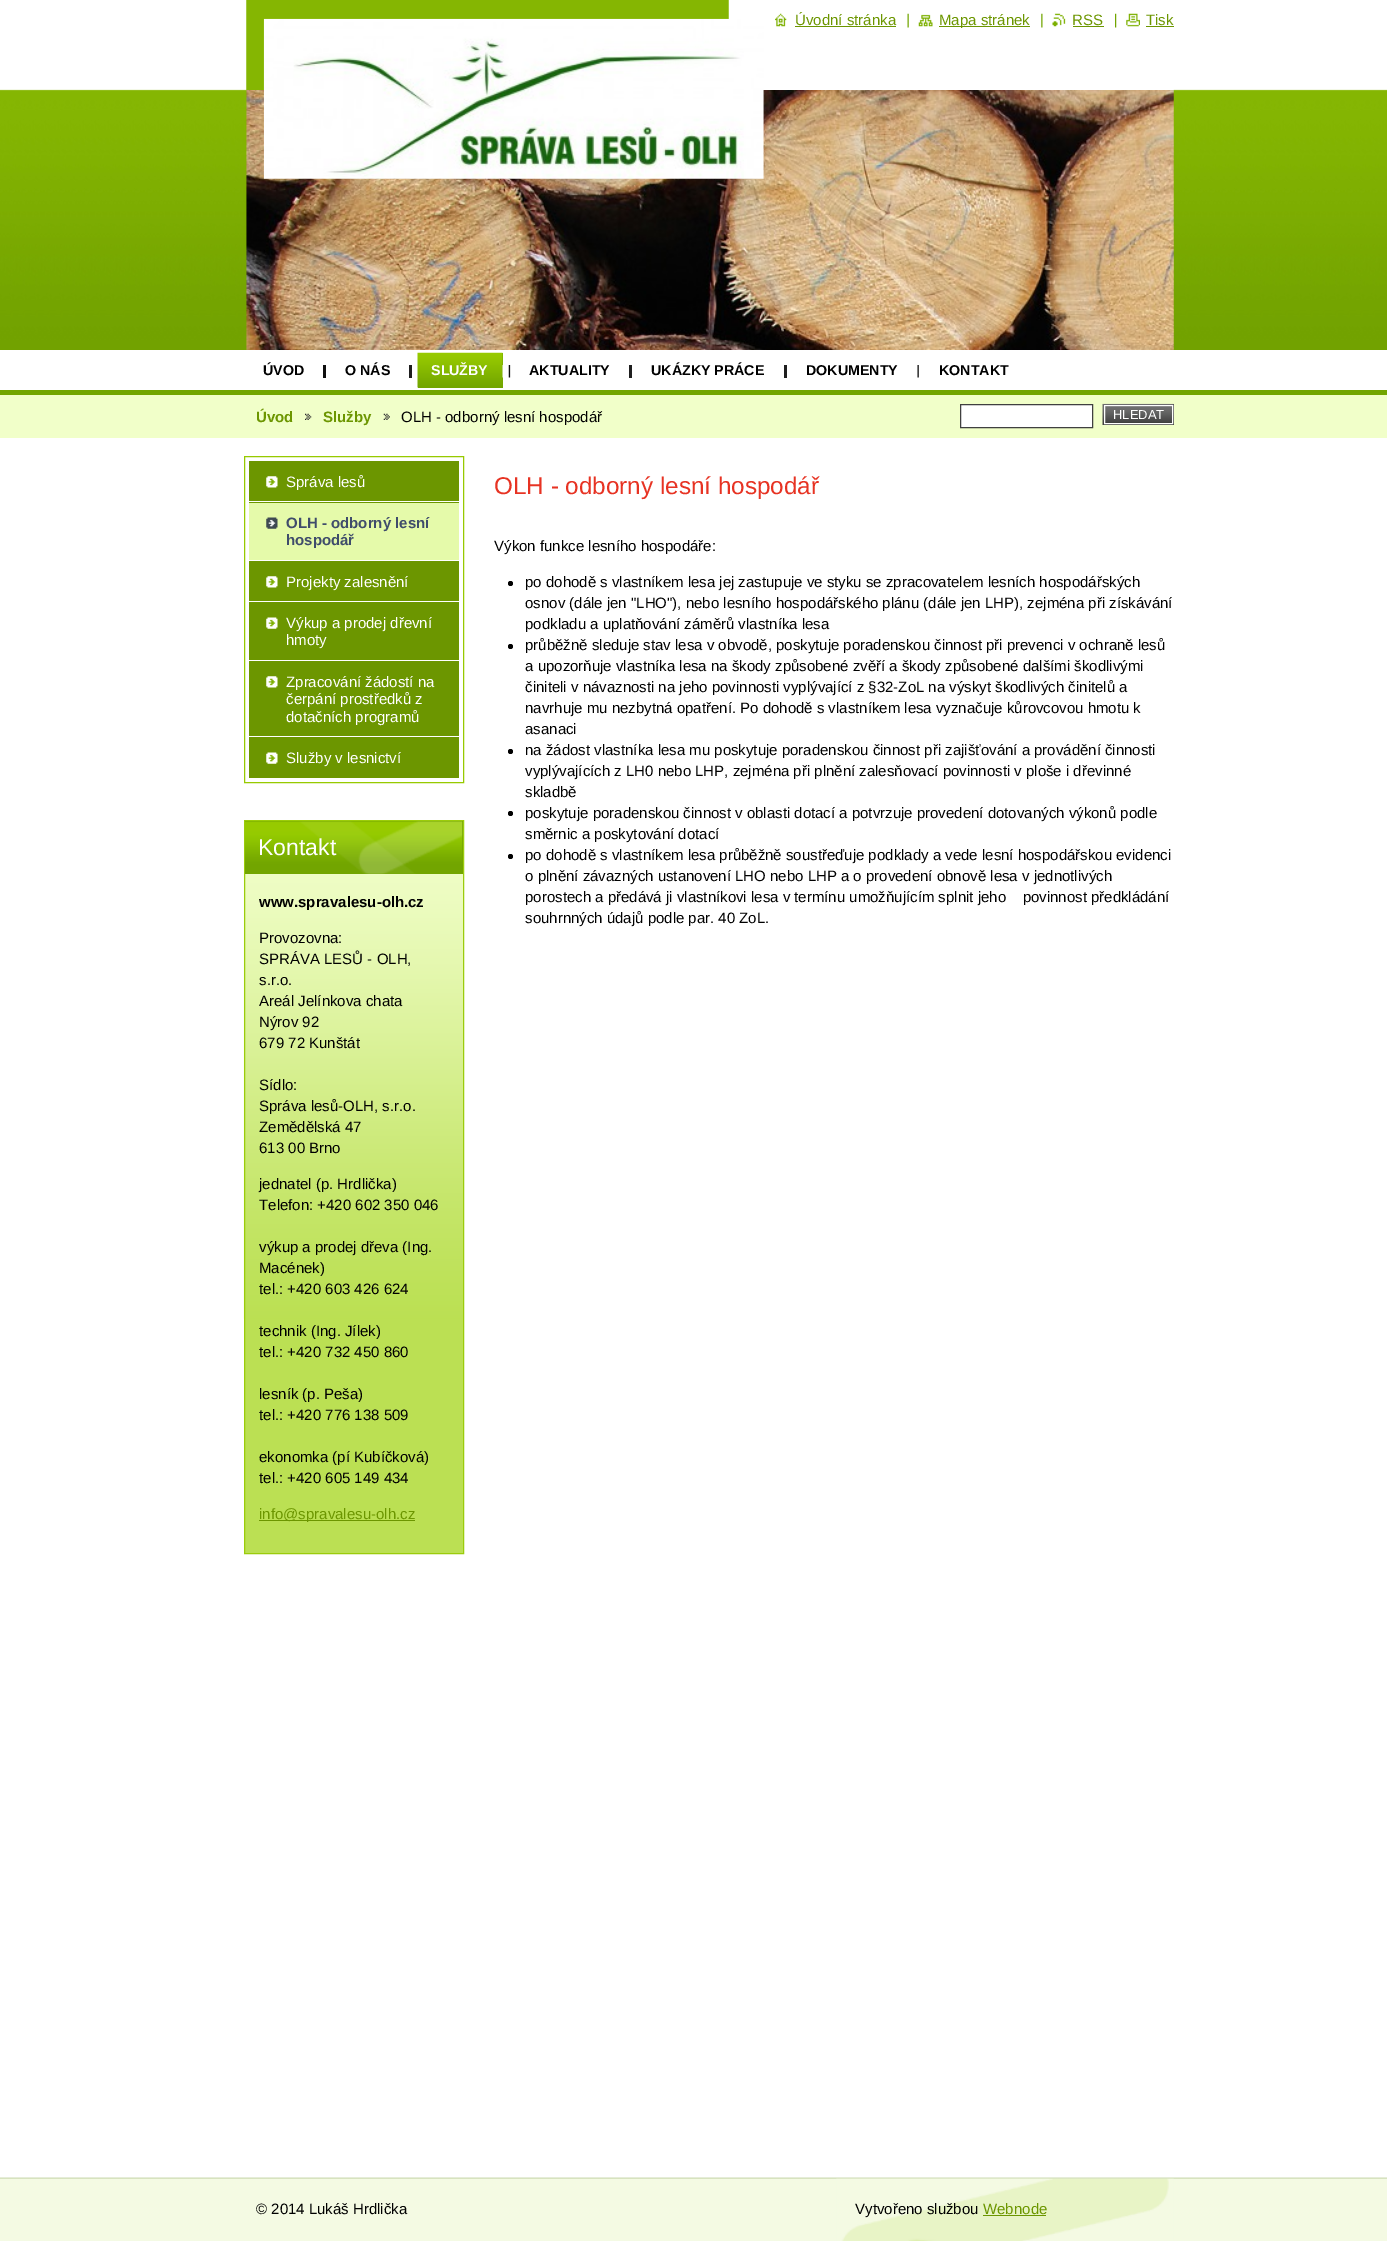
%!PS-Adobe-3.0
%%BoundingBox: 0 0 1387 2241
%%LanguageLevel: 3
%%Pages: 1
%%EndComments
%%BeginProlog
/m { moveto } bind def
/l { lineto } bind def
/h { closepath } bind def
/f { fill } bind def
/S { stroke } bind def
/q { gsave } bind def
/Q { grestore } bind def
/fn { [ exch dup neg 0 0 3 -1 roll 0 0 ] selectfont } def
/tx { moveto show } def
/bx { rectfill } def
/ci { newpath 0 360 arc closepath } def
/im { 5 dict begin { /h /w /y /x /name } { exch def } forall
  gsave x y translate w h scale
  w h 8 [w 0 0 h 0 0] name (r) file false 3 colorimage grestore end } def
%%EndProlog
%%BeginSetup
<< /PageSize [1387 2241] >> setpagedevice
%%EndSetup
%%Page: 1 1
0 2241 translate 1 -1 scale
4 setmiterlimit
1 setgray
0 0 1387 2241 bx
(image7.raw) 0 89 1387 261 im
(image8.raw) 246 0 928 90 im
(image0.raw) 775 13 12 14 im
/LiberationSans-Regular 15 fn
0.424 0.588 0 setrgbcolor
(Úvodní stránka) 795 25 tx
795 26 101 1 bx
(image1.raw) 907 13 2 15 im
(image2.raw) 918 14 15 13 im
939 26 91 1 bx
(Mapa stránek) 939 25 tx
(image3.raw) 1041 13 2 15 im
(image4.raw) 1052 13 14 14 im
(RSS) 1072 25 tx
1073 26 31 1 bx
(image5.raw) 1115 13 2 15 im
(image6.raw) 1126 13 14 14 im
(Tisk) 1146 25 tx
1146 26 28 1 bx
(image10.raw) 246 90 928 260 im
(image9.raw) 263 18 501 161 im
/LiberationSans-Bold 14.25 fn
0 setgray
(ÚVOD) 263 375 tx
0.059 setgray
323 365 3 13 bx
0 setgray
(O NÁS) 345 375 tx
0.122 setgray
409 365 3 13 bx
0.443 0.643 0 setrgbcolor
418 353 85 35 bx
(image11.raw) 417 352 86 36 im
1 setgray
(SLUŽBY) 431 375 tx
(image12.raw) 502 365 9 13 im
0 setgray
(AKTUALITY) 529 375 tx
0.122 setgray
629 365 3 13 bx
0 setgray
(UKÁZKY PRÁCE) 651 375 tx
0.122 setgray
784 365 3 13 bx
0 setgray
(DOKUMENTY) 806 375 tx
(image13.raw) 917 365 2 13 im
(KONTAKT) 939 375 tx
0.945 1 0.788 setrgbcolor
0 395 1387 43 bx
0.447 0.647 0 setrgbcolor
0 390 1387 5 bx
/LiberationSans-Bold 15 fn
0.424 0.588 0 setrgbcolor
(Úvod) 256 422 tx
(image14.raw) 305 413 7 7 im
(Služby) 323 422 tx
(image15.raw) 383 413 7 7 im
/LiberationSans-Regular 15 fn
0 setgray
(OLH - odborný lesní hospodář) 401 422 tx
1 setgray
960.5 404.5 m 1092.5 404.5 l 1092.5 427.5 l 960.5 427.5 l h q f Q
0.251 setgray
S
1173 404 1 21 bx
(image16.raw) 1102 403 72 22 im
1105 406 67 17 bx
(image17.raw) 1105 406 67 16 im
1 setgray
1104.5 405.5 68 18 rectstroke
/LiberationSans-Regular 13 fn
(HLEDAT) 1113 419 tx
0.592 0.792 0 setrgbcolor
244.5 456.5 219 326 rectstroke
0.424 0.588 0 setrgbcolor
249 461 210 42 bx
(image18.raw) 266 476 12 12 im
1 setgray
249 501 210 1 bx
/LiberationSans-Regular 15 fn
(Správa lesů) 286 487 tx
0.898 0.98 0.667 setrgbcolor
249 503 210 57 bx
(image19.raw) 266 517 12 12 im
/LiberationSans-Bold 15 fn
0.247 0.298 0.42 setrgbcolor
(OLH - odborný lesní) 286 528 tx
(hospodář) 286 545 tx
0.424 0.588 0 setrgbcolor
249 561 210 99 bx
(image18.raw) 266 576 12 12 im
1 setgray
249 601 210 1 bx
/LiberationSans-Regular 15 fn
(Projekty zalesnění) 286 587 tx
(image20.raw) 266 617 12 12 im
(Výkup a prodej dřevní) 286 628 tx
(hmoty) 286 645 tx
0.424 0.588 0 setrgbcolor
249 661 210 117 bx
(image18.raw) 266 676 12 12 im
1 setgray
249 736 210 1 bx
(Zpracování žádostí na) 286 687 tx
(čerpání prostředků z) 286 704 tx
(dotačních programů) 286 722 tx
(image20.raw) 266 752 12 12 im
(Služby v lesnictví) 286 763 tx
0.733 0.878 0.325 setrgbcolor
245 1318 218 235 bx
(image21.raw) 243 821 220 498 im
0.608 0.8 0.043 setrgbcolor
244.5 820.5 219 733 rectstroke
0.447 0.647 0 setrgbcolor
245 821 218 53 bx
(image22.raw) 245 821 218 53 im
/LiberationSans-Regular 23 fn
1 setgray
(Kontakt) 258 855 tx
/LiberationSans-Bold 15 fn
0 setgray
(www.spravalesu-olh.cz) 259 907 tx
/LiberationSans-Regular 15 fn
(Provozovna:) 259 943 tx
(SPRÁVA LESŮ - OLH,) 259 964 tx
(s.r.o.) 259 985 tx
(Areál Jelínkova chata) 259 1006 tx
(Nýrov 92) 259 1027 tx
(679 72 Kunštát) 259 1048 tx
(Sídlo:) 259 1090 tx
(Správa lesů-OLH, s.r.o.) 259 1111 tx
(Zemědělská 47) 259 1132 tx
(613 00 Brno) 259 1153 tx
(jednatel \(p. Hrdlička\)) 259 1189 tx
(Telefon: +420 602 350 046) 259 1210 tx
(výkup a prodej dřeva \(Ing.) 259 1252 tx
(Macének\)) 259 1273 tx
(tel.: +420 603 426 624) 259 1294 tx
(technik \(Ing. Jílek\)) 259 1336 tx
(tel.: +420 732 450 860) 259 1357 tx
(lesník \(p. Peša\)) 259 1399 tx
(tel.: +420 776 138 509) 259 1420 tx
(ekonomka \(pí Kubíčková\)) 259 1462 tx
(tel.: +420 605 149 434) 259 1483 tx
0.424 0.588 0 setrgbcolor
259 1520 156 1 bx
(info@spravalesu-olh.cz) 259 1519 tx
/LiberationSans-Regular 24.25 fn
0.906 0.2 0.137 setrgbcolor
(OLH - odborný lesní hospodář) 494 494 tx
/LiberationSans-Regular 15 fn
0 setgray
(Výkon funkce lesního hospodáře:) 494 551 tx
510.5 583.5 2.5 ci f
(po dohodě s vlastníkem lesa jej zastupuje ve styku se zpracovatelem lesních hospodářských) 525 587 tx
(osnov \(dále jen "LHO"\), nebo lesního hospodářského plánu \(dále jen LHP\), zejména při získávání) 525 608 tx
(podkladu a uplatňování záměrů vlastníka lesa) 525 629 tx
510.5 646.5 2.5 ci f
(průběžně sleduje stav lesa v obvodě, poskytuje poradenskou činnost při prevenci v ochraně lesů) 525 650 tx
(a upozorňuje vlastníka lesa na škody způsobené zvěří a škody způsobené dalšími škodlivými) 525 671 tx
(činiteli v návaznosti na jeho povinnosti vyplývající z §32-ZoL na výskyt škodlivých činitelů a) 525 692 tx
(navrhuje mu nezbytná opatření. Po dohodě s vlastníkem lesa vyznačuje kůrovcovou hmotu k) 525 713 tx
(asanaci) 525 734 tx
510.5 751.5 2.5 ci f
(na žádost vlastníka lesa mu poskytuje poradenskou činnost při zajišťování a provádění činnosti) 525 755 tx
(vyplývajících z LH0 nebo LHP, zejména při plnění zalesňovací povinnosti v ploše i dřevinné) 525 776 tx
(skladbě) 525 797 tx
510.5 813.5 2.5 ci f
(poskytuje poradenskou činnost v oblasti dotací a potvrzuje provedení dotovaných výkonů podle) 525 818 tx
(směrnic a poskytování dotací) 525 839 tx
510.5 856.5 2.5 ci f
(po dohodě s vlastníkem lesa průběžně soustřeďuje podklady a vede lesní hospodářskou evidenci) 525 860 tx
(o plnění závazných ustanovení LHO nebo LHP a o provedení obnově lesa v jednotlivých) 525 881 tx
(porostech a předává ji vlastníkovi lesa v termínu umožňujícím splnit jeho    povinnost předkládání) 525 902 tx
(souhrnných údajů podle par. 40 ZoL.) 525 923 tx
0.957 0.98 0.89 setrgbcolor
0 2178 1387 63 bx
(image23.raw) 0 2177 1387 2 im
(image24.raw) 836 2178 338 63 im
0 setgray
(© 2014 Lukáš Hrdlička) 256 2214 tx
(Vytvořeno službou) 855 2214 tx
0.424 0.588 0 setrgbcolor
(Webnode) 983 2214 tx
983 2215 63 1 bx
showpage
%%EOF
